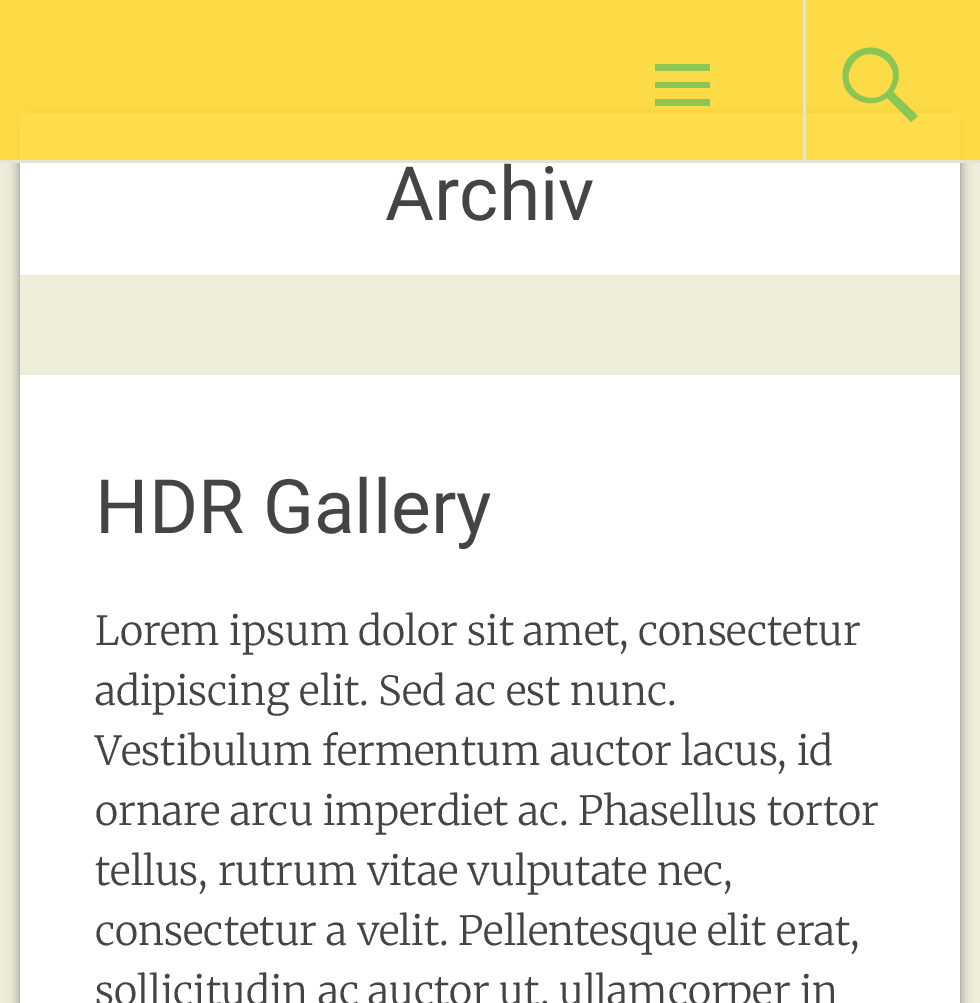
%!PS-Adobe-3.0
%%BoundingBox: 0 0 980 1003
%%LanguageLevel: 3
%%Pages: 1
%%EndComments
%%BeginProlog
/m { moveto } bind def
/l { lineto } bind def
/c { curveto } bind def
/h { closepath } bind def
/f { fill } bind def
/q { gsave } bind def
/Q { grestore } bind def
/fn { [ exch dup neg 0 0 3 -1 roll 0 0 ] selectfont } def
/tx { moveto show } def
/bx { rectfill } def
/al { dup .setfillconstantalpha .setstrokeconstantalpha } def
/rr { 5 dict begin { /r /h /w /y /x } { exch def } forall
  x r add y moveto x w add y 2 copy h add r arct x w add y h add x 1 index r arct
  x y h add x y r arct x y 2 copy exch w add exch r arct closepath end } def
/sh { 12 dict begin { /a /b /q /h /w /y /x } { exch def } forall gsave /was 0 def
  9 -2 -9 { dup b mul 4 div /e exch def 1 sub .425 mul 2.718 exch exp 1 add a .99 .min exch div /now exch def
    1 1 now sub 1 was sub div sub al /was now def
    w h .min e 2 mul add 0 gt { x e sub y e sub w e 2 mul add h e 2 mul add
      q e add b .6 mul add w h .min 2 div e add .min 0 .max rr fill } if } for grestore end } def
%%EndProlog
%%BeginSetup
<< /PageSize [980 1003] /PageUsesTransparency true >> setpagedevice
%%EndSetup
%%Page: 1 1
0 .pushpdf14devicefilter
0 1003 translate 1 -1 scale
4 setmiterlimit
0.929 0.929 0.855 setrgbcolor
0 0 980 1003 bx
q
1 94 m 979 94 l 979 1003 l 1 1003 l h 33 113 m 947 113 l 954 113 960 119 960 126 c 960 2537 l 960 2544 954 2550 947 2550 c 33 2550 l 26 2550 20 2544 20 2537 c 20 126 l 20 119 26 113 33 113 c h eoclip newpath
0.502 setgray
20 113 940 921 13 6 1 sh
Q
1 setgray
20 113 940 162 bx
0.9 al
1 0.851 0.212 setrgbcolor
0 0 980 163 bx
0.882 0.894 0.902 setrgbcolor
0 160 980 3 bx
1 al
0.545 0.776 0.337 setrgbcolor
655 106 m 655 99 l 710 99 l 710 106 l h 655 64 m 710 64 l 710 71 l 655 71 l h 655 88 m 655 82 l 710 82 l 710 88 l h f
0.9 al
0.882 0.894 0.902 setrgbcolor
803 0 3 160 bx
0.494 0.769 0.345 setrgbcolor
918 116 m 911 122 l 887 98 l 873 108 853 103 845 88 c 843 83 842 76 843 70 c 849 41 890 40 898 68 c 900 76 898 85 893 92 c h 852 65 m 837 90 875 112 890 87 c 904 62 866 40 852 65 c h f
/Roboto-Regular 75 fn
1 al
0.267 setgray
(Archiv) 385 220 tx
1 setgray
20 375 940 628 bx
0.267 setgray
(HDR Gallery) 95 533 tx
/Merriweather-Light 40 fn
(Lorem ipsum dolor sit amet, consectetur) 95 645 tx
(adipiscing elit. Sed ac est nunc.) 95 705 tx
(Vestibulum fermentum auctor lacus, id) 95 765 tx
(ornare arcu imperdiet ac. Phasellus tortor) 95 825 tx
(tellus, rutrum vitae vulputate nec,) 95 885 tx
(consectetur a velit. Pellentesque elit erat,) 95 945 tx
(sollicitudin ac auctor ut, ullamcorper in) 95 1005 tx
.poppdf14devicefilter showpage
%%EOF
